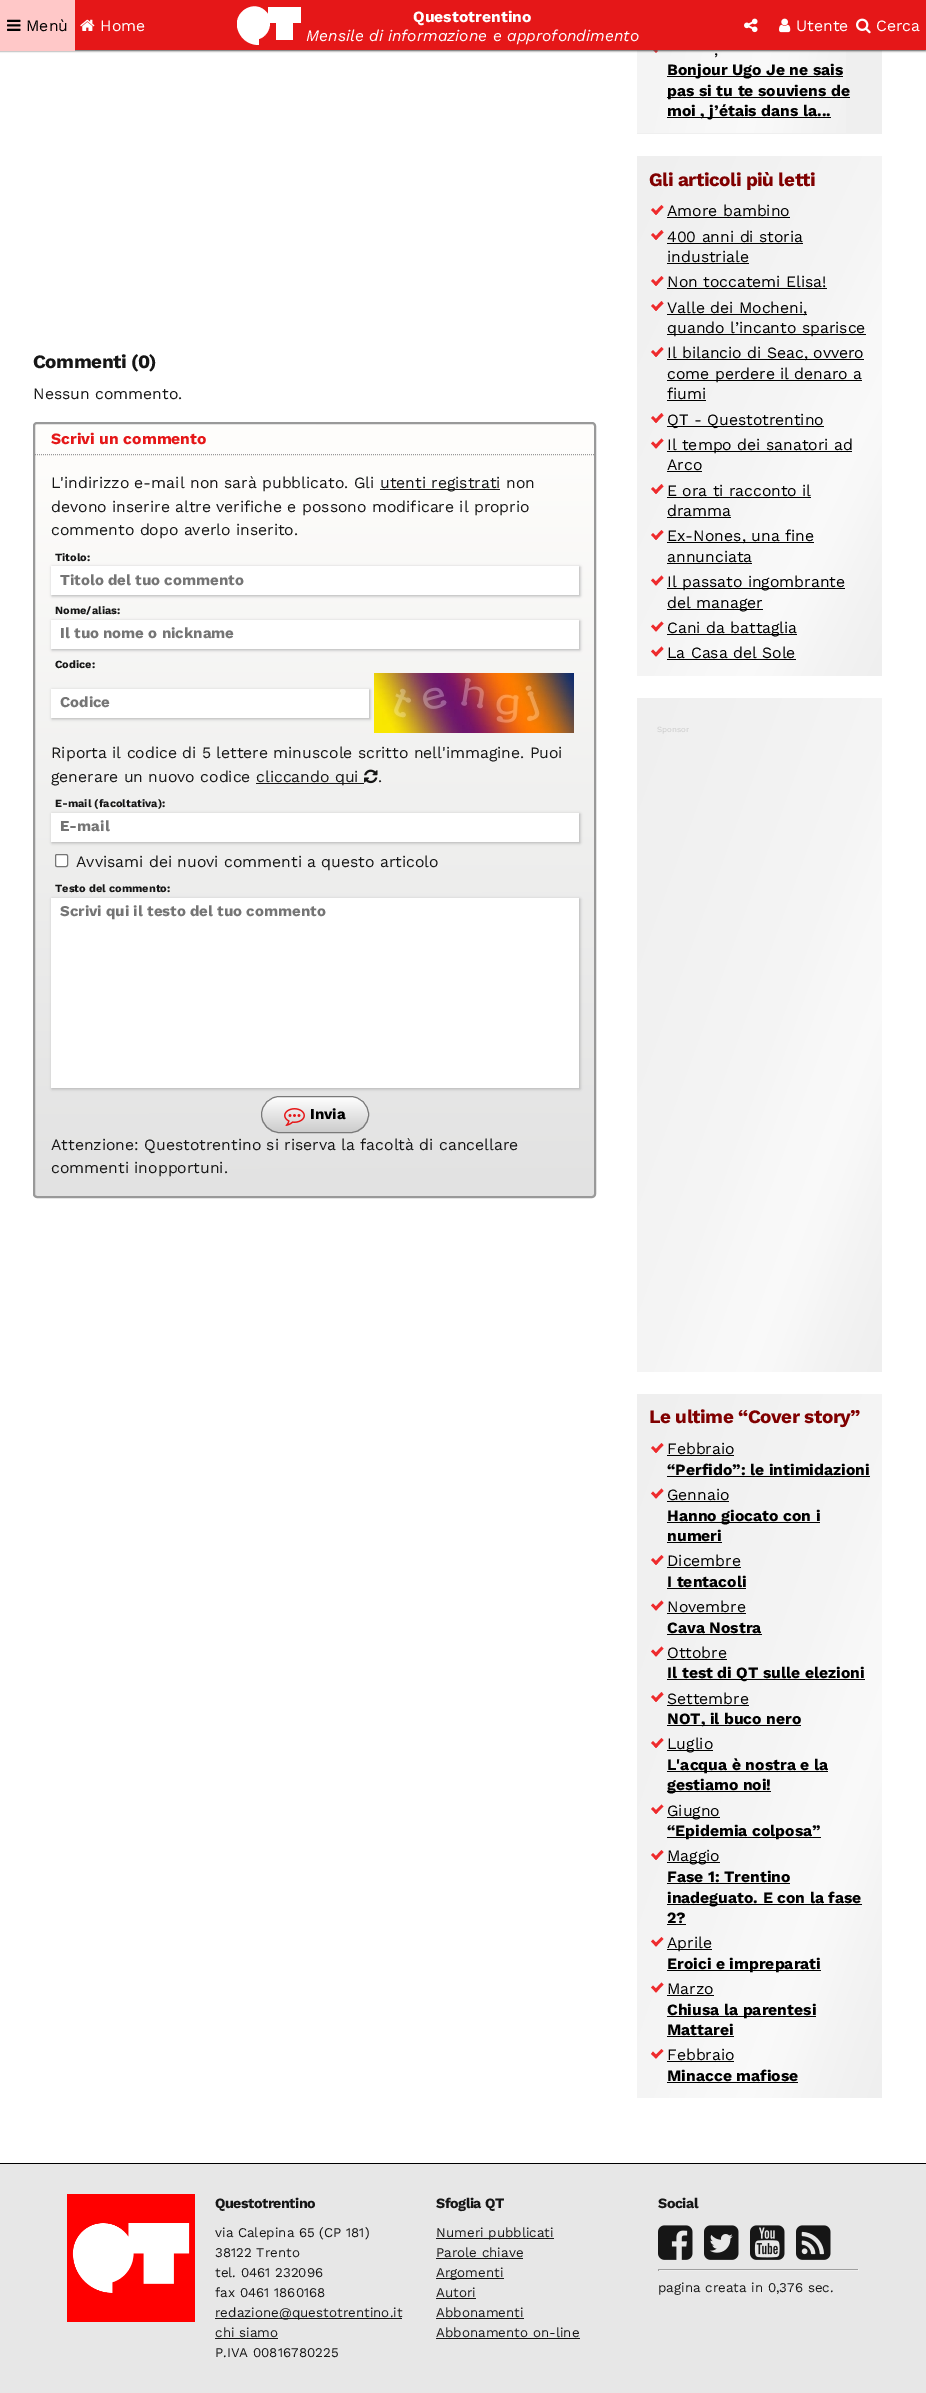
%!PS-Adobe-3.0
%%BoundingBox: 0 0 926 2393
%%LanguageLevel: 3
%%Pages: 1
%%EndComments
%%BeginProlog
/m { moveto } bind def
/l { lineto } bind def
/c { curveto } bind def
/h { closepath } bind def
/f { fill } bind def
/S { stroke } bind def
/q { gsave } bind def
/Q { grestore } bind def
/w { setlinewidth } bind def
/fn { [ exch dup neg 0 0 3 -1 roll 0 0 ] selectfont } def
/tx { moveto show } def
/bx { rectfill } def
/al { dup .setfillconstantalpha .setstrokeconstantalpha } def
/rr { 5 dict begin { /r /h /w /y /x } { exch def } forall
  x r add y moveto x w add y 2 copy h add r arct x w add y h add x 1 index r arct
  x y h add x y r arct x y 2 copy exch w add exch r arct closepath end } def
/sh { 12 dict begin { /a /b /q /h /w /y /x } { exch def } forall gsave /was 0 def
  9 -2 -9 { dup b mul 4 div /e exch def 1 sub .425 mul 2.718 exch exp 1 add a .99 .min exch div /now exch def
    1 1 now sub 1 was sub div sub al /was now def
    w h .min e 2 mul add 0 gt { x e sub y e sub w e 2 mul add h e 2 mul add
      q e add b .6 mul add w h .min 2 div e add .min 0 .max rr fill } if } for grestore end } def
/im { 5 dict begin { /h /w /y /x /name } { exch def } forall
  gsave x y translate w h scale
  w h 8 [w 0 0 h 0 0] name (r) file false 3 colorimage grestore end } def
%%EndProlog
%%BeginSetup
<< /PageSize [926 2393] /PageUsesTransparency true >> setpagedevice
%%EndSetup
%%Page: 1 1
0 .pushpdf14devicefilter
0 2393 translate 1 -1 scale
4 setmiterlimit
1 setgray
0 0 926 2393 bx
0.937 setgray
637 50 245 84 bx
(image8.raw) 637 50 209 83 im
0.933 0.169 0.176 setrgbcolor
653 46 m 658 51 l 656 53 l 651 48 l h f
0.333 setgray
0 1 926 50 0 1 1 sh
0.898 0.09 0.094 setrgbcolor
75 0 851 50 bx
1 0.784 0.784 setrgbcolor
0 0 75 51 bx
(image0.raw) 7 19 14 12 im
/WorkSans-Regular 15.75 fn
0 setgray
(Menù) 26 31 tx
(image1.raw) 80 19 15 12 im
1 setgray
(Home) 100 31 tx
q
237 6 64 40 rectclip
301 23 m 301 7 l 268 7 l 268 14 l 255 -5 226 15 241 36 c 245 42 252 45 259 45 c 259 39 l 265 37 270 31 270 23 c 276 23 l 276 40 l 293 40 l 293 23 l h f
Q
/WorkSans-Bold 15.75 fn
(Questotrentino) 413 22 tx
/WorkSans-Italic 15.75 fn
(Mensile di informazione e approfondimento) 306 41 tx
(image2.raw) 744 18 14 15 im
(image3.raw) 779 18 12 15 im
/WorkSans-Regular 15.75 fn
(Utente) 796 31 tx
(image4.raw) 856 18 15 16 im
(Cerca) 876 31 tx
/WorkSans-Bold 19 fn
0.086 setgray
33 368 m -0.5 0 (Commenti \(0\)) ashow
/WorkSans-Regular 15.75 fn
(Nessun commento.) 33 399 tx
q
33 422 563 776 4 rr clip newpath
q 33 424 m 596 424 l 596 1196 l 33 1196 l h clip newpath
<< /ShadingType 2 /ColorSpace /DeviceRGB /Coords [314 424 315 1196] /Extend [true true] /Function << /FunctionType 2 /Domain [0 1] /C0 [1 0.996 0.988] /C1 [0.886 0.886 0.886] /N 1 >> >> shfill Q
Q
0.6 setgray
2 w
34 423 561 774 3 rr S
1 w
[1 1] 0 setdash
35 454.5 m 594 454.5 l S
/WorkSans-Bold 15.75 fn
0.898 0.09 0.094 setrgbcolor
(Scrivi un commento) 51 444 tx
/WorkSans-Regular 15.75 fn
0.086 setgray
(L'indirizzo e-mail non sarà pubblicato. Gli) 51 488 tx
380 489 120 1 bx
(utenti registrati non) 380 488 tx
(devono inserire altre verifiche e possono modificare il proprio) 51 512 tx
(commento dopo averlo inserito.) 51 535 tx
0.702 setgray
52 567 528 29 0 1.5 1 sh
/WorkSans-Bold 11 fn
0.086 setgray
(Titolo:) 55 561 tx
1 setgray
51 566 528 29 bx
/WorkSans-Bold 15 fn
0.459 setgray
(Titolo del tuo commento) 60 585 tx
/WorkSans-Bold 11 fn
0.086 setgray
(Nome/alias:) 55 614 tx
0.702 setgray
52 621 528 29 0 1.5 1 sh
1 setgray
51 620 528 29 bx
/WorkSans-Bold 15 fn
0.459 setgray
(Il tuo nome o nickname) 60 638 tx
/WorkSans-Bold 11 fn
0.086 setgray
(Codice:) 55 668 tx
0.702 setgray
52 690 318 29 0 1.5 1 sh
1 setgray
51 689 318 29 bx
/WorkSans-Bold 15 fn
0.459 setgray
(Codice) 60 707 tx
(image5.raw) 374 673 200 60 im
/WorkSans-Regular 15.75 fn
0.086 setgray
(Riporta il codice di 5 lettere minuscole scritto nell'immagine. Puoi) 51 758 tx
(generare un nuovo codice) 51 782 tx
256 783 108 1 bx
(cliccando qui) 256 782 tx
(image6.raw) 364 769 14 15 im
(.) 378 782 tx
0.702 setgray
52 814 528 29 0 1.5 1 sh
/WorkSans-Bold 11 fn
0.086 setgray
(E-mail \(facoltativa\):) 55 807 tx
1 setgray
51 813 528 29 bx
/WorkSans-Bold 15 fn
0.459 setgray
(E-mail) 60 831 tx
1 setgray
55.5 854.5 12 12 1.5 rr q f Q
0.463 setgray
[] 0 setdash
S
/WorkSans-Regular 15.75 fn
0.086 setgray
(Avvisami dei nuovi commenti a questo articolo) 76 867 tx
/WorkSans-Bold 11 fn
(Testo del commento:) 55 892 tx
0.702 setgray
52 899 528 190 0 1.5 1 sh
1 setgray
51 898 528 190 bx
/WorkSans-Bold 15 fn
0.459 setgray
(Scrivi qui il testo del tuo commento) 60 916 tx
q
261 1096 108 37 18.5 rr clip newpath
q 261 1097 m 369 1097 l 369 1132 l 261 1132 l h clip newpath
<< /ShadingType 2 /ColorSpace /DeviceRGB /Coords [315 1097 315 1132] /Extend [true true] /Function << /FunctionType 2 /Domain [0 1] /C0 [1 1 1] /C1 [0.8 0.8 0.8] /N 1 >> >> shfill Q
Q
0.475 setgray
261.5 1096.5 107 36 18 rr S
(image7.raw) 284 1108 21 18 im
0 setgray
(Invia) 310 1119 tx
/WorkSans-Regular 15.75 fn
0.086 setgray
(Attenzione: Questotrentino si riserva la facoltà di cancellare) 51 1150 tx
(commenti inopportuni.) 51 1173 tx
0 setgray
(,) 714 55 tx
667 76 176 1 bx
/WorkSans-Bold 15.75 fn
(Bonjour Ugo Je ne sais) 667 75 tx
667 97 183 1 bx
(pas si tu te souviens de) 667 96 tx
667 117 164 1 bx
(moi , j’étais dans la...) 667 116 tx
0.937 setgray
637 156 245 520 bx
(image9.raw) 637 156 245 520 im
/WorkSans-Bold 19 fn
0.502 0 0 setrgbcolor
649 186 m -0.5 0 (Gli articoli più letti) ashow
0.933 0.169 0.176 setrgbcolor
661.5 205 m 663.5 207 l 656 215 l 654 213 l h f
653 208 m 658 213 l 656 215 l 651 210 l h f
/WorkSans-Regular 15.75 fn
0 setgray
(Amore bambino) 667 216 tx
667 217 123 1 bx
0.933 0.169 0.176 setrgbcolor
661.5 230 m 663.5 232.5 l 656 240 l 654 238 l h f
653 233 m 658 238 l 656 240 l 651 235 l h f
0 setgray
(400 anni di storia) 667 242 tx
667 243 136 1 bx
(industriale) 667 262 tx
667 263 82 1 bx
0.933 0.169 0.176 setrgbcolor
661.5 276 m 663.5 278 l 656 286 l 654 284 l h f
653 279 m 658 284 l 656 286 l 651 281 l h f
0 setgray
(Non toccatemi Elisa!) 667 287 tx
667 288 160 1 bx
0.933 0.169 0.176 setrgbcolor
661.5 301 m 663.5 303.5 l 656 311 l 654 309 l h f
653 304 m 658 309 l 656 311 l 651 306 l h f
0 setgray
667 314 140 1 bx
(Valle dei Mocheni,) 667 313 tx
667 334 199 1 bx
(quando l’incanto sparisce) 667 333 tx
0.933 0.169 0.176 setrgbcolor
661.5 347 m 663.5 349 l 656 357 l 654 355 l h f
653 350 m 658 355 l 656 357 l 651 352 l h f
0 setgray
667 359 197 1 bx
(Il bilancio di Seac, ovvero) 667 358 tx
667 380 195 1 bx
(come perdere il denaro a) 667 379 tx
(fiumi) 667 399 tx
667 400 39 1 bx
0.933 0.169 0.176 setrgbcolor
661.5 413 m 663.5 415.5 l 656 423 l 654 421 l h f
653 416 m 658 421 l 656 423 l 651 418 l h f
0 setgray
667 426 157 1 bx
(QT - Questotrentino) 667 425 tx
0.933 0.169 0.176 setrgbcolor
661.5 438.5 m 663.5 440.5 l 656 448.5 l 654 446.5 l h f
653 441.5 m 658 446.5 l 656 448.5 l 651 443.5 l h f
0 setgray
667 451 185 1 bx
(Il tempo dei sanatori ad) 667 450 tx
(Arco) 667 470 tx
667 471 35 1 bx
0.933 0.169 0.176 setrgbcolor
661.5 484 m 663.5 486.5 l 656 494 l 654 492 l h f
653 487 m 658 492 l 656 494 l 651 489 l h f
0 setgray
(E ora ti racconto il) 667 496 tx
667 497 144 1 bx
(dramma) 667 516 tx
667 517 64 1 bx
0.933 0.169 0.176 setrgbcolor
661.5 530 m 663.5 532 l 656 540 l 654 538 l h f
653 533 m 658 538 l 656 540 l 651 535 l h f
0 setgray
667 542 147 1 bx
(Ex-Nones, una fine) 667 541 tx
(annunciata) 667 562 tx
667 563 85 1 bx
0.933 0.169 0.176 setrgbcolor
661.5 575.5 m 663.5 578 l 656 585.5 l 654 583.5 l h f
653 578.5 m 658 583.5 l 656 585.5 l 651 580.5 l h f
0 setgray
667 588 178 1 bx
(Il passato ingombrante) 667 587 tx
667 609 96 1 bx
(del manager) 667 608 tx
0.933 0.169 0.176 setrgbcolor
661.5 621.5 m 663.5 623.5 l 656 631.5 l 654 629.5 l h f
653 624.5 m 658 629.5 l 656 631.5 l 651 626.5 l h f
0 setgray
667 634 130 1 bx
(Cani da battaglia) 667 633 tx
0.933 0.169 0.176 setrgbcolor
661.5 646.5 m 663.5 649 l 656 656.5 l 654 654.5 l h f
653 649.5 m 658 654.5 l 656 656.5 l 651 651.5 l h f
0 setgray
(La Casa del Sole) 667 658 tx
667 659 129 1 bx
0.937 setgray
637 698 245 674 bx
(image10.raw) 637 698 245 674 im
/WorkSans-Regular 8 fn
0.8 setgray
(Sponsor) 657 732 tx
0.937 setgray
637 1394 245 704 bx
(image11.raw) 637 1394 245 704 im
/WorkSans-Bold 19 fn
0.502 0 0 setrgbcolor
649 1423 m -0.5 0 (Le ultime “Cover story”) ashow
0.933 0.169 0.176 setrgbcolor
661.5 1443 m 663.5 1445 l 656 1453 l 654 1451 l h f
653 1446 m 658 1451 l 656 1453 l 651 1448 l h f
/WorkSans-Regular 15.75 fn
0 setgray
(Febbraio) 667 1454 tx
667 1455 67 1 bx
/WorkSans-Bold 15.75 fn
(“Perfido”: le intimidazioni) 667 1475 tx
667 1476 203 1 bx
0.933 0.169 0.176 setrgbcolor
661.5 1488.5 m 663.5 1491 l 656 1498.5 l 654 1496.5 l h f
653 1491.5 m 658 1496.5 l 656 1498.5 l 651 1493.5 l h f
/WorkSans-Regular 15.75 fn
0 setgray
(Gennaio) 667 1500 tx
667 1501 62 1 bx
667 1522 153 1 bx
/WorkSans-Bold 15.75 fn
(Hanno giocato con i) 667 1521 tx
(numeri) 667 1541 tx
667 1542 55 1 bx
0.933 0.169 0.176 setrgbcolor
661.5 1555 m 663.5 1557 l 656 1565 l 654 1563 l h f
653 1558 m 658 1563 l 656 1565 l 651 1560 l h f
/WorkSans-Regular 15.75 fn
0 setgray
(Dicembre) 667 1566 tx
667 1567 74 1 bx
/WorkSans-Bold 15.75 fn
(I tentacoli) 667 1587 tx
667 1588 79 1 bx
0.933 0.169 0.176 setrgbcolor
661.5 1600.5 m 663.5 1603 l 656 1610.5 l 654 1608.5 l h f
653 1603.5 m 658 1608.5 l 656 1610.5 l 651 1605.5 l h f
/WorkSans-Regular 15.75 fn
0 setgray
(Novembre) 667 1612 tx
667 1613 79 1 bx
/WorkSans-Bold 15.75 fn
(Cava Nostra) 667 1633 tx
667 1634 95 1 bx
0.933 0.169 0.176 setrgbcolor
661.5 1646.5 m 663.5 1648.5 l 656 1656.5 l 654 1654.5 l h f
653 1649.5 m 658 1654.5 l 656 1656.5 l 651 1651.5 l h f
/WorkSans-Regular 15.75 fn
0 setgray
(Ottobre) 667 1658 tx
667 1659 60 1 bx
667 1679 198 1 bx
/WorkSans-Bold 15.75 fn
(Il test di QT sulle elezioni) 667 1678 tx
0.933 0.169 0.176 setrgbcolor
661.5 1692 m 663.5 1694.5 l 656 1702 l 654 1700 l h f
653 1695 m 658 1700 l 656 1702 l 651 1697 l h f
/WorkSans-Regular 15.75 fn
0 setgray
(Settembre) 667 1704 tx
667 1705 82 1 bx
667 1725 134 1 bx
/WorkSans-Bold 15.75 fn
(NOT, il buco nero) 667 1724 tx
0.933 0.169 0.176 setrgbcolor
661.5 1738 m 663.5 1740 l 656 1748 l 654 1746 l h f
653 1741 m 658 1746 l 656 1748 l 651 1743 l h f
0 setgray
667 1750 46 1 bx
/WorkSans-Regular 15.75 fn
(Luglio) 667 1749 tx
667 1771 161 1 bx
/WorkSans-Bold 15.75 fn
(L'acqua è nostra e la) 667 1770 tx
667 1791 104 1 bx
(gestiamo noi!) 667 1790 tx
0.933 0.169 0.176 setrgbcolor
661.5 1804.5 m 663.5 1806.5 l 656 1814 l 654 1812 l h f
653 1807 m 658 1812 l 656 1814 l 651 1809 l h f
0 setgray
667 1817 53 1 bx
/WorkSans-Regular 15.75 fn
(Giugno) 667 1816 tx
667 1837 154 1 bx
/WorkSans-Bold 15.75 fn
(“Epidemia colposa”) 667 1836 tx
0.933 0.169 0.176 setrgbcolor
661.5 1850 m 663.5 1852 l 656 1860 l 654 1858 l h f
653 1853 m 658 1858 l 656 1860 l 651 1855 l h f
0 setgray
667 1862 53 1 bx
/WorkSans-Regular 15.75 fn
(Maggio) 667 1861 tx
/WorkSans-Bold 15.75 fn
(Fase 1: Trentino) 667 1882 tx
667 1883 123 1 bx
667 1904 195 1 bx
(inadeguato. E con la fase) 667 1903 tx
(2?) 667 1923 tx
667 1924 19 1 bx
0.933 0.169 0.176 setrgbcolor
661.5 1937 m 663.5 1939 l 656 1946.5 l 654 1944.5 l h f
653 1939.5 m 658 1944.5 l 656 1946.5 l 651 1941.5 l h f
0 setgray
667 1949 45 1 bx
/WorkSans-Regular 15.75 fn
(Aprile) 667 1948 tx
667 1970 154 1 bx
/WorkSans-Bold 15.75 fn
(Eroici e impreparati) 667 1969 tx
0.933 0.169 0.176 setrgbcolor
661.5 1982.5 m 663.5 1984.5 l 656 1992.5 l 654 1990.5 l h f
653 1985.5 m 658 1990.5 l 656 1992.5 l 651 1987.5 l h f
/WorkSans-Regular 15.75 fn
0 setgray
(Marzo) 667 1994 tx
667 1995 47 1 bx
667 2016 149 1 bx
/WorkSans-Bold 15.75 fn
(Chiusa la parentesi) 667 2015 tx
(Mattarei) 667 2035 tx
667 2036 67 1 bx
0.933 0.169 0.176 setrgbcolor
661.5 2049 m 663.5 2051 l 656 2058.5 l 654 2056.5 l h f
653 2051.5 m 658 2056.5 l 656 2058.5 l 651 2054 l h f
/WorkSans-Regular 15.75 fn
0 setgray
(Febbraio) 667 2060 tx
667 2061 67 1 bx
/WorkSans-Bold 15.75 fn
(Minacce mafiose) 667 2081 tx
667 2082 131 1 bx
0.906 setgray
0 2164 926 229 bx
0 setgray
0 2163 926 1 bx
(image12.raw) 67 2194 128 128 im
/WorkSans-Bold 14.25 fn
0.086 setgray
215 2208 m -0.5 0 (Questotrentino) ashow
/WorkSans-Regular 13.4 fn
(via Calepina 65 \(CP 181\)) 215 2237 tx
(38122 Trento) 215 2257 tx
(tel. 0461 232096) 215 2277 tx
(fax 0461 1860168) 215 2297 tx
215 2318 187 1 bx
(redazione@questotrentino.it) 215 2317 tx
(chi siamo) 215 2337 tx
215 2338 63 1 bx
(P.IVA 00816780225) 215 2357 tx
/WorkSans-Bold 14.25 fn
436 2208 m -0.5 0 (Sfoglia QT) ashow
436 2238 118 1 bx
/WorkSans-Regular 13.4 fn
(Numeri pubblicati) 436 2237 tx
(Parole chiave) 436 2257 tx
436 2258 87 1 bx
436 2278 68 1 bx
(Argomenti) 436 2277 tx
(Autori) 436 2297 tx
436 2298 40 1 bx
(Abbonamenti) 436 2317 tx
436 2318 88 1 bx
(Abbonamento on-line) 436 2337 tx
436 2338 144 1 bx
/WorkSans-Bold 14.25 fn
658 2208 m -0.5 0 (Social) ashow
(image13.raw) 658 2225 35 35 im
(image14.raw) 704 2225 35 35 im
(image15.raw) 750 2225 35 35 im
(image16.raw) 796 2225 35 35 im
0.624 setgray
658 2269 201 1 bx
0.933 setgray
858 2269 1 2 bx
658 2270 201 1 bx
0.624 setgray
658 2269 1 2 bx
/WorkSans-Regular 13.4 fn
0.086 setgray
(pagina creata in 0,376 sec.) 658 2292 tx
.poppdf14devicefilter showpage
%%EOF
